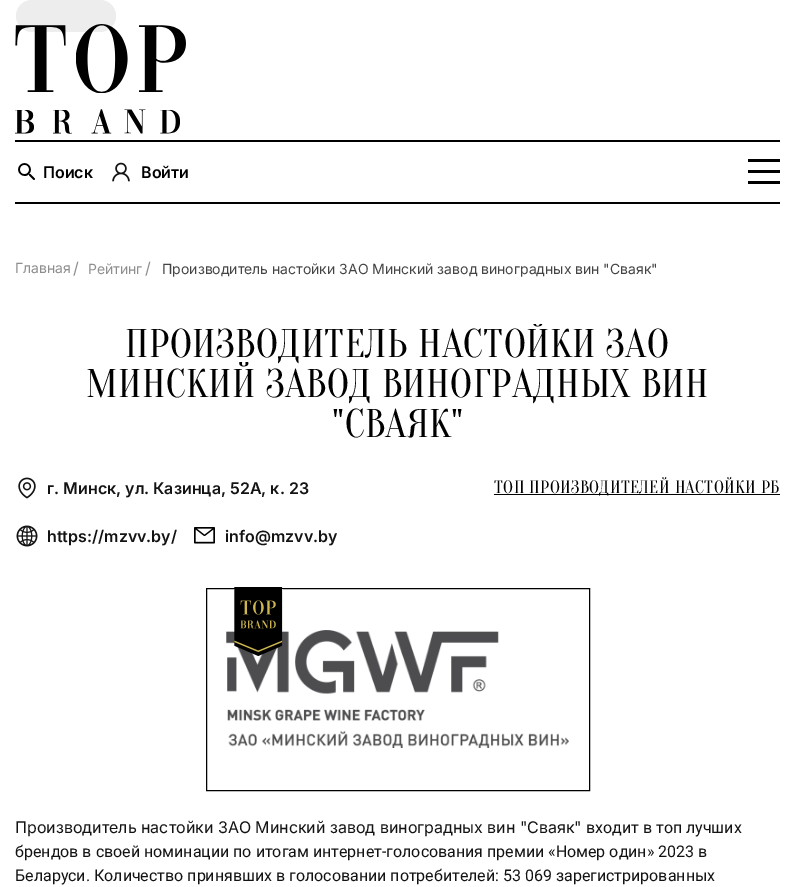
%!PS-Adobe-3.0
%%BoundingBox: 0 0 795 887
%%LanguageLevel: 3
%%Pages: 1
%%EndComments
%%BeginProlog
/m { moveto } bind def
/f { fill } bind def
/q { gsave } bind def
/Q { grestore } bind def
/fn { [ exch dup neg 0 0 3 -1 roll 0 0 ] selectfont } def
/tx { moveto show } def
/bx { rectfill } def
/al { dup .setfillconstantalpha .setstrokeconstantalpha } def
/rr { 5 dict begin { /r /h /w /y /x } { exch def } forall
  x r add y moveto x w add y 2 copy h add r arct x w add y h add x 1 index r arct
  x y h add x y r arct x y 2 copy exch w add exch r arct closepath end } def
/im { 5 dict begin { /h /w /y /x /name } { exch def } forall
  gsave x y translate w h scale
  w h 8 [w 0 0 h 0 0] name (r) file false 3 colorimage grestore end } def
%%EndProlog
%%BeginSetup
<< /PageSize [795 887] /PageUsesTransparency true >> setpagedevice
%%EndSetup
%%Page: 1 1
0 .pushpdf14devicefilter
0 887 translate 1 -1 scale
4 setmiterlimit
1 setgray
0 0 795 887 bx
(image0.raw) 15 24 171 110 im
0 setgray
15 140 765 2 bx
15 202 765 2 bx
(image1.raw) 18 163 17 17 im
/Inter-SemiBold 16 fn
(Поиск) 43 178 tx
(image2.raw) 112 162 18 20 im
(Войти) 141 178 tx
748 159 32 3 bx
748 170 32 3 bx
748 181 32 3 bx
/Inter-Regular 14 fn
0.557 setgray
(Главная) 15 273 tx
/Inter-Regular 16 fn
(/) 73 274 tx
/Inter-Regular 14 fn
(Рейтинг) 88 274 tx
/Inter-Regular 16 fn
(/) 145 274 tx
/Inter-Regular 14 fn
0.267 setgray
(Производитель настойки ЗАО Минский завод виноградных вин "Сваяк") 162 274 tx
q
15 324 765 120 rectclip
/Oranienbaum-Regular 40 fn
0 setgray
125 357 m 0.5 0 (ПРОИЗВОДИТЕЛЬ НАСТОЙКИ ЗАО) ashow
Q
/Oranienbaum-Regular 40 fn
0 setgray
86 397 m 0.5 0 (МИНСКИЙ ЗАВОД ВИНОГРАДНЫХ ВИН) ashow
332 437 m 0.5 0 ("СВАЯК") ashow
(image3.raw) 18 477 18 22 im
/Inter-SemiBold 16 fn
0.075 setgray
(г. Минск, ул. Казинца, 52A, к. 23) 47 494 tx
0 setgray
494 494 286 1 bx
/Oranienbaum-Regular 18 fn
494 493 m 0.4 0 (ТОП ПРОИЗВОДИТЕЛЕЙ НАСТОЙКИ РБ) ashow
0.07 al
16 0 100 32 16 rr f
1 al
(image4.raw) 16 525 22 22 im
/Inter-SemiBold 16 fn
0.075 setgray
(https://mzvv.by/) 47 542 tx
(image5.raw) 194 527 21 17 im
(info@mzvv.by) 225 542 tx
0 setgray
206.5 588.5 383 202 rectstroke
(image7.raw) 226 630 343 118 im
(image6.raw) 234 587 49 69 im
/Inter-Regular 16 fn
0.075 setgray
(Производитель настойки ЗАО Минский завод виноградных вин "Сваяк") 15 833 tx
/Roboto-Regular 16 fn
(входит в топ лучших) 586 833 tx
(брендов в своей номинации по итогам интернет-голосования премии «Номер один» 2023 в) 15 857 tx
(Беларуси. Количество принявших в голосовании потребителей: 53 069 зарегистрированных) 15 881 tx
.poppdf14devicefilter showpage
%%EOF
